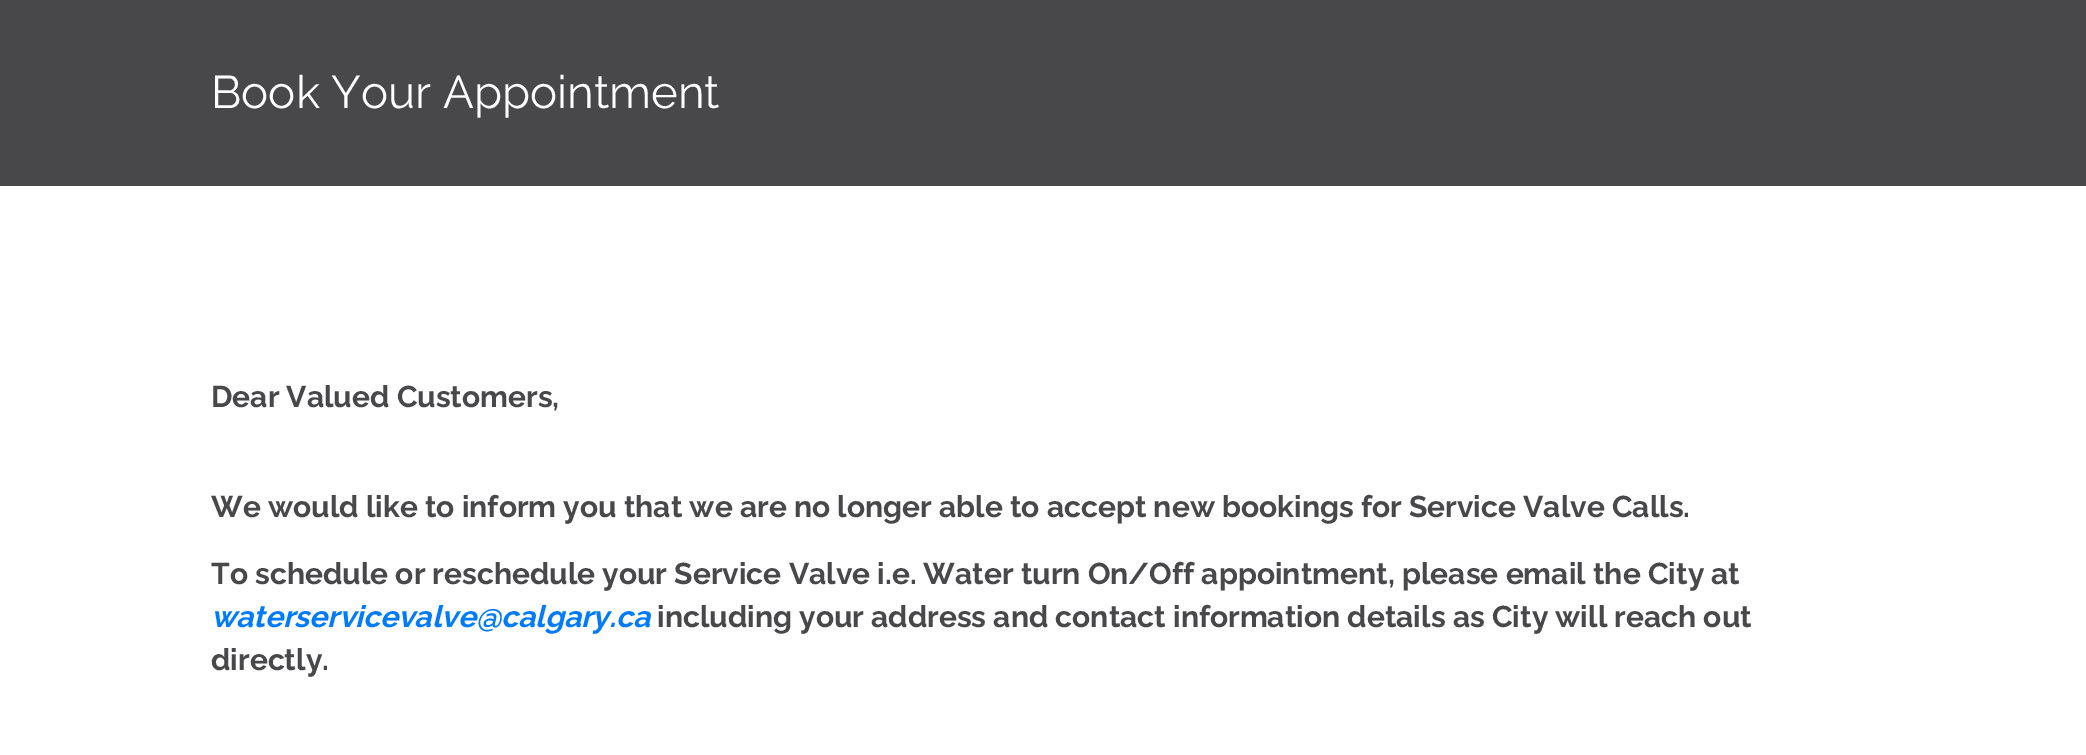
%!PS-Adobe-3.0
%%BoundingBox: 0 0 2086 755
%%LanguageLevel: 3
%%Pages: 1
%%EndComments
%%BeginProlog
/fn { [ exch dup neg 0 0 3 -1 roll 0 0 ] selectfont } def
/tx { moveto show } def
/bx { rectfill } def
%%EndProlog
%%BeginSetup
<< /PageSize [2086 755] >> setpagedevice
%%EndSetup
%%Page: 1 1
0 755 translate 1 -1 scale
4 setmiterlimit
1 setgray
0 0 2086 755 bx
0.282 0.278 0.286 setrgbcolor
0 0 2086 186 bx
/Raleway-Regular 45.6 fn
1 setgray
(Book Your Appointment) 211 108 tx
/Raleway-Bold 30 fn
0.282 0.278 0.286 setrgbcolor
(Dear Valued Customers,) 211 407 tx
(We would like to inform you that we are no longer able to accept new bookings for Service Valve Calls.) 211 517 tx
(To schedule or reschedule your Service Valve i.e. Water turn On/Off appointment, please email the City at) 211 584 tx
/Raleway-BoldItalic 30 fn
0 0.482 1 setrgbcolor
(waterservicevalve@calgary.ca) 211 627 tx
/Raleway-Bold 30 fn
0.282 0.278 0.286 setrgbcolor
(including your address and contact information details as City will reach out) 657 627 tx
(directly.) 211 670 tx
showpage
%%EOF
